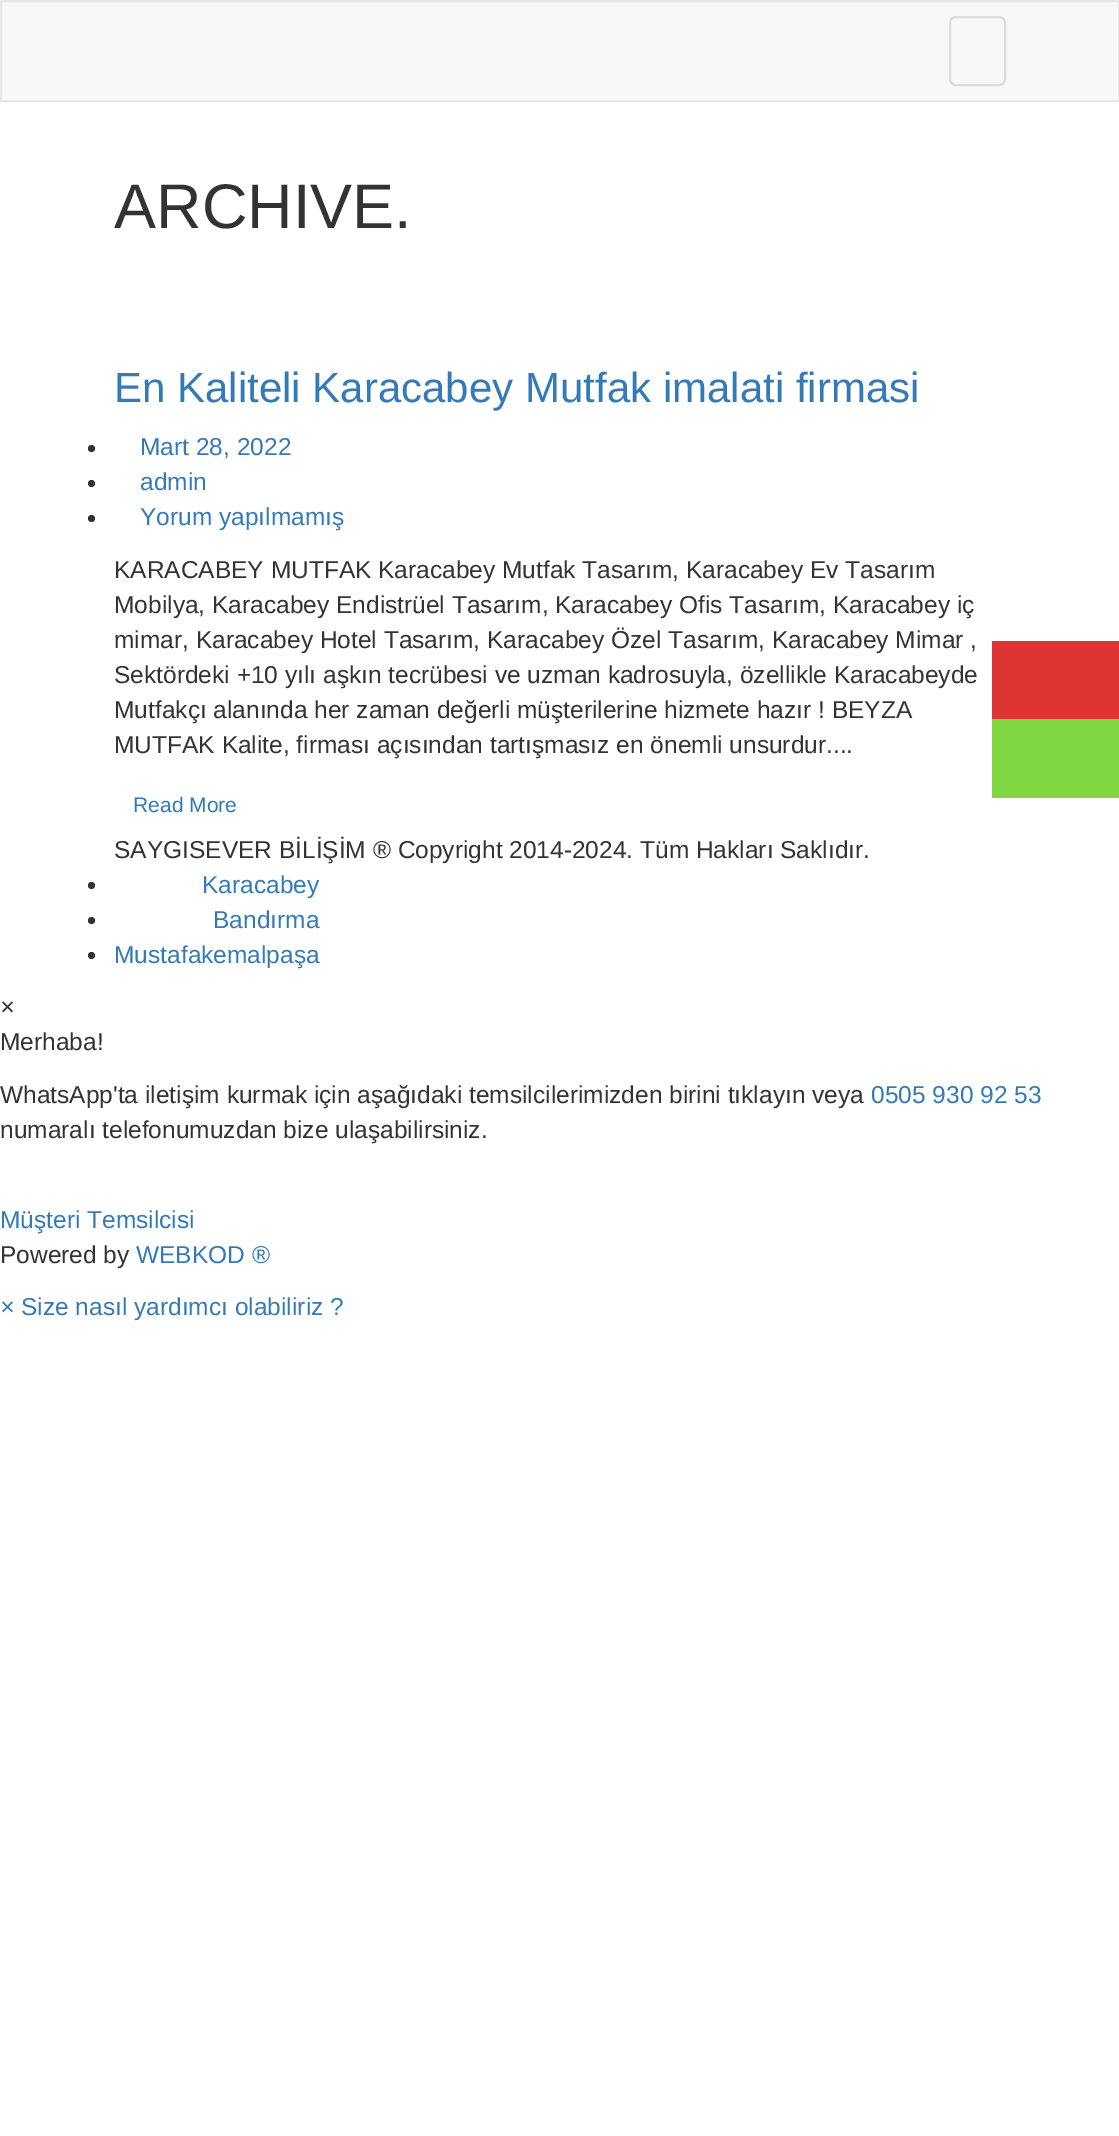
%!PS-Adobe-3.0
%%BoundingBox: 0 0 1119 2136
%%LanguageLevel: 3
%%Pages: 1
%%EndComments
%%BeginProlog
/m { moveto } bind def
/l { lineto } bind def
/h { closepath } bind def
/f { fill } bind def
/S { stroke } bind def
/q { gsave } bind def
/Q { grestore } bind def
/w { setlinewidth } bind def
/fn { [ exch dup neg 0 0 3 -1 roll 0 0 ] selectfont } def
/tx { moveto show } def
/bx { rectfill } def
/ci { newpath 0 360 arc closepath } def
/rr { 5 dict begin { /r /h /w /y /x } { exch def } forall
  x r add y moveto x w add y 2 copy h add r arct x w add y h add x 1 index r arct
  x y h add x y r arct x y 2 copy exch w add exch r arct closepath end } def
%%EndProlog
%%BeginSetup
<< /PageSize [1119 2136] >> setpagedevice
%%EndSetup
%%Page: 1 1
0 2136 translate 1 -1 scale
4 setmiterlimit
1 setgray
0 0 1119 2136 bx
0.973 setgray
1 1 m 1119 1 l 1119 101 l 1 101 l h q f Q
0.906 setgray
2 w
S
0.867 setgray
950 17 55 68 6 rr S
/LiberationSans-Regular 63 fn
0.2 setgray
(ARCHIVE.) 114 228 tx
/LiberationSans-Regular 42 fn
0.2 0.478 0.718 setrgbcolor
(En Kaliteli Karacabey Mutfak imalati firmasi) 114 402 tx
0.2 setgray
91.5 448.5 3.5 ci f
/LiberationSans-Regular 24.5 fn
0.2 0.478 0.718 setrgbcolor
(Mart 28, 2022) 140 455 tx
0.2 setgray
91.5 483.5 3.5 ci f
0.2 0.478 0.718 setrgbcolor
(admin) 140 490 tx
0.2 setgray
91.5 518.5 3.5 ci f
0.2 0.478 0.718 setrgbcolor
(Yorum yapılmamış) 140 525 tx
0.2 setgray
(KARACABEY MUTFAK Karacabey Mutfak Tasarım, Karacabey Ev Tasarım) 114 578 tx
(Mobilya, Karacabey Endistrüel Tasarım, Karacabey Ofis Tasarım, Karacabey iç) 114 613 tx
(mimar, Karacabey Hotel Tasarım, Karacabey Özel Tasarım, Karacabey Mimar ,) 114 648 tx
(Sektördeki +10 yılı aşkın tecrübesi ve uzman kadrosuyla, özellikle Karacabeyde) 114 683 tx
(Mutfakçı alanında her zaman değerli müşterilerine hizmete hazır ! BEYZA) 114 718 tx
(MUTFAK Kalite, firması açısından tartışmasız en önemli unsurdur....) 114 753 tx
/LiberationSans-Regular 21 fn
0.2 0.478 0.718 setrgbcolor
(Read More) 133 812 tx
0.867 0.2 0.2 setrgbcolor
992 641 127 78 bx
0.506 0.843 0.259 setrgbcolor
992 719 127 79 bx
/LiberationSans-Regular 24.5 fn
0.2 setgray
(SAYGISEVER BİLİŞİM ® Copyright 2014-2024. Tüm Hakları Saklıdır.) 114 858 tx
91.5 885.5 3.5 ci f
0.2 0.478 0.718 setrgbcolor
(Karacabey) 202 893 tx
0.2 setgray
91.5 920.5 3.5 ci f
0.2 0.478 0.718 setrgbcolor
(Bandırma) 213 928 tx
0.2 setgray
91.5 955.5 3.5 ci f
0.2 0.478 0.718 setrgbcolor
(Mustafakemalpaşa) 114 963 tx
/LiberationSans-Italic 24.5 fn
0.2 setgray
(×) 0 1015 tx
/LiberationSans-Regular 24.5 fn
(Merhaba!) 0 1050 tx
(WhatsApp'ta iletişim kurmak için aşağıdaki temsilcilerimizden birini tıklayın veya) 0 1103 tx
0.2 0.478 0.718 setrgbcolor
(0505 930 92 53) 871 1103 tx
0.2 setgray
(numaralı telefonumuzdan bize ulaşabilirsiniz.) 0 1138 tx
0.2 0.478 0.718 setrgbcolor
(Müşteri Temsilcisi) 0 1228 tx
0.2 setgray
(Powered by) 0 1263 tx
0.2 0.478 0.718 setrgbcolor
(WEBKOD ®) 136 1263 tx
/LiberationSans-Italic 24.5 fn
(×) 0 1315 tx
/LiberationSans-Regular 24.5 fn
(Size nasıl yardımcı olabiliriz ?) 21 1315 tx
showpage
%%EOF
